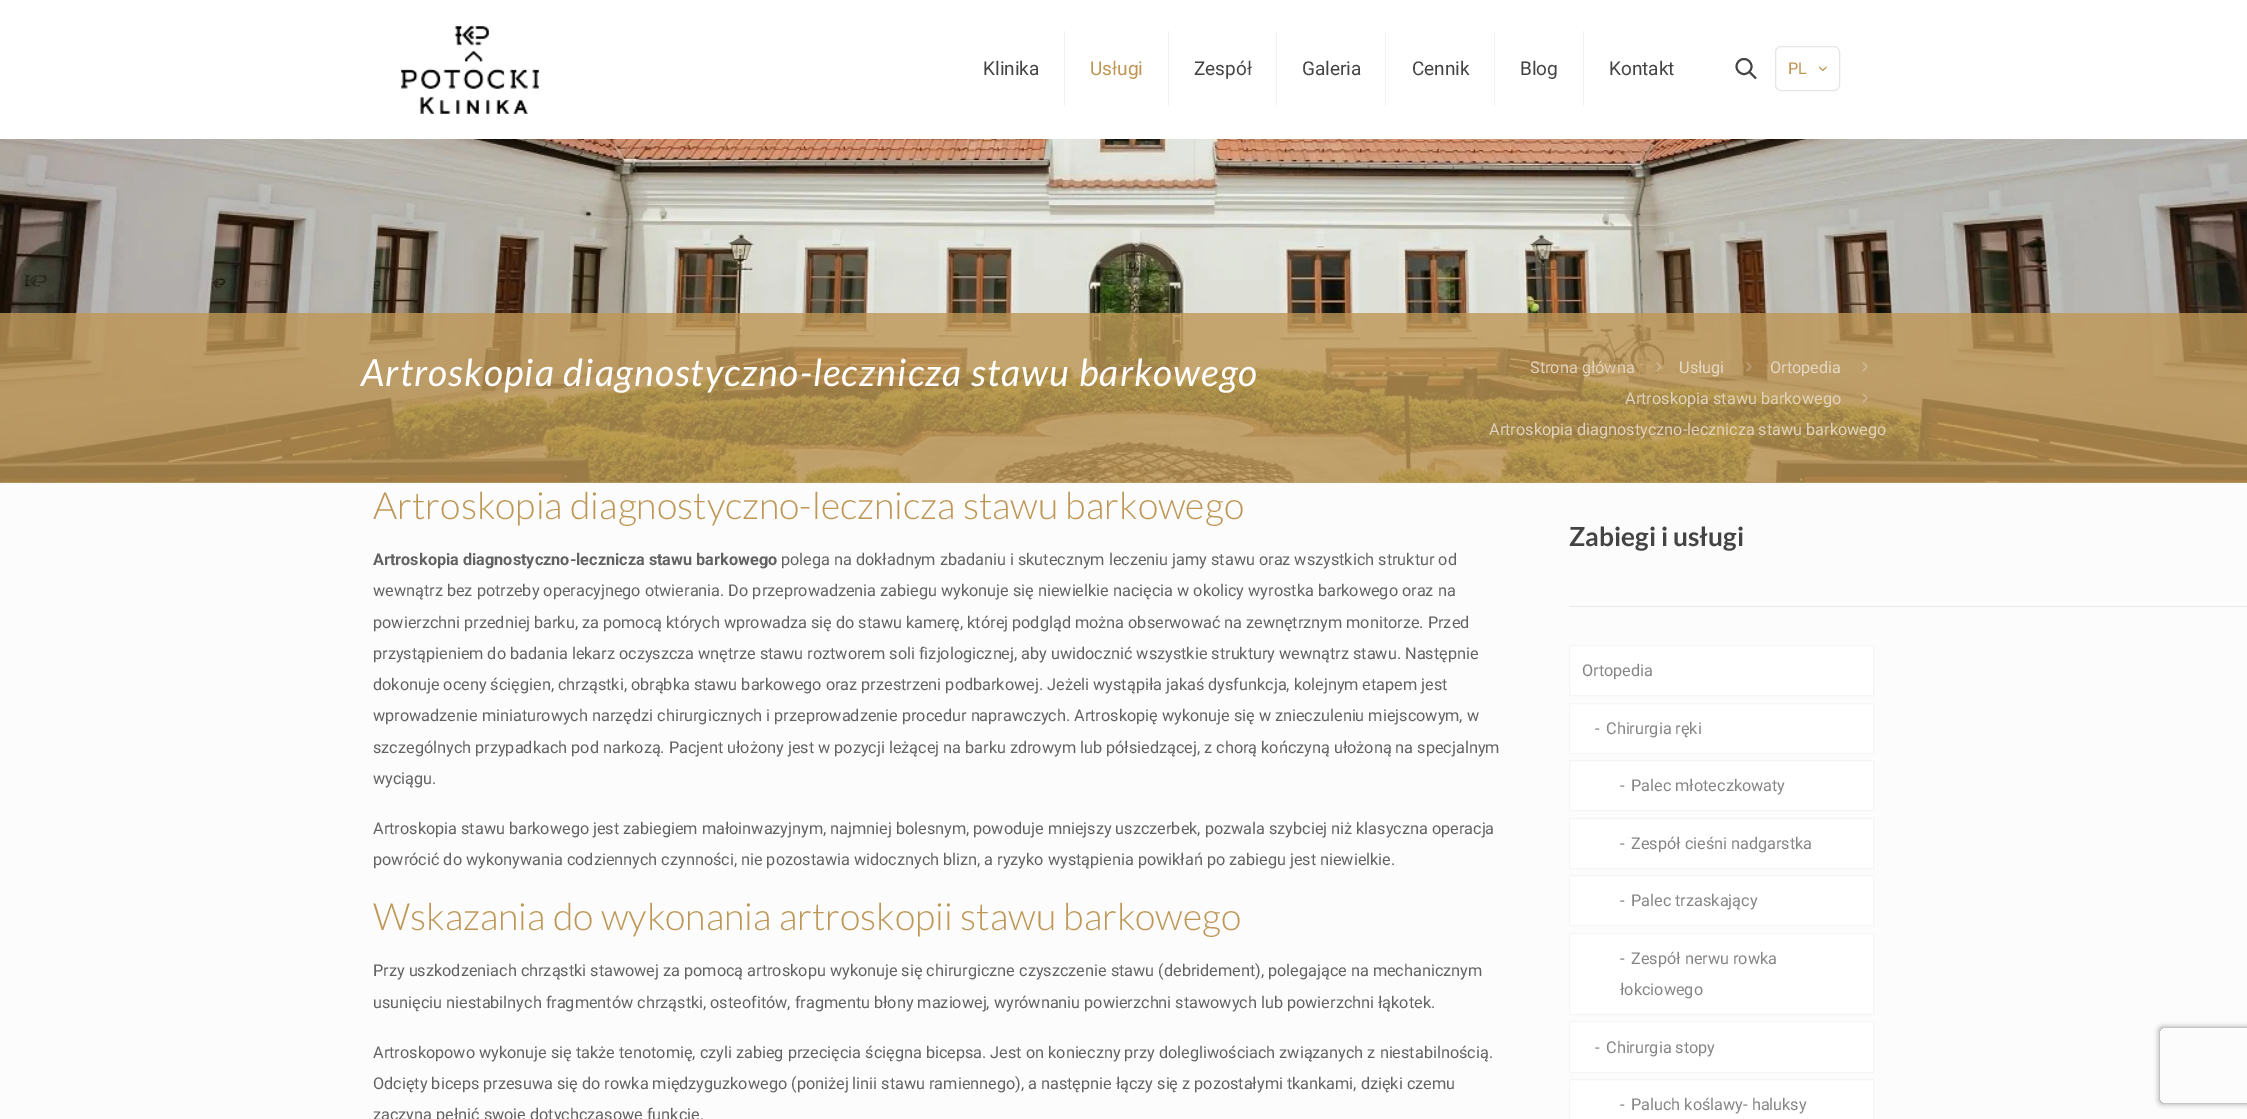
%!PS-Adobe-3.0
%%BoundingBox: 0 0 2247 1119
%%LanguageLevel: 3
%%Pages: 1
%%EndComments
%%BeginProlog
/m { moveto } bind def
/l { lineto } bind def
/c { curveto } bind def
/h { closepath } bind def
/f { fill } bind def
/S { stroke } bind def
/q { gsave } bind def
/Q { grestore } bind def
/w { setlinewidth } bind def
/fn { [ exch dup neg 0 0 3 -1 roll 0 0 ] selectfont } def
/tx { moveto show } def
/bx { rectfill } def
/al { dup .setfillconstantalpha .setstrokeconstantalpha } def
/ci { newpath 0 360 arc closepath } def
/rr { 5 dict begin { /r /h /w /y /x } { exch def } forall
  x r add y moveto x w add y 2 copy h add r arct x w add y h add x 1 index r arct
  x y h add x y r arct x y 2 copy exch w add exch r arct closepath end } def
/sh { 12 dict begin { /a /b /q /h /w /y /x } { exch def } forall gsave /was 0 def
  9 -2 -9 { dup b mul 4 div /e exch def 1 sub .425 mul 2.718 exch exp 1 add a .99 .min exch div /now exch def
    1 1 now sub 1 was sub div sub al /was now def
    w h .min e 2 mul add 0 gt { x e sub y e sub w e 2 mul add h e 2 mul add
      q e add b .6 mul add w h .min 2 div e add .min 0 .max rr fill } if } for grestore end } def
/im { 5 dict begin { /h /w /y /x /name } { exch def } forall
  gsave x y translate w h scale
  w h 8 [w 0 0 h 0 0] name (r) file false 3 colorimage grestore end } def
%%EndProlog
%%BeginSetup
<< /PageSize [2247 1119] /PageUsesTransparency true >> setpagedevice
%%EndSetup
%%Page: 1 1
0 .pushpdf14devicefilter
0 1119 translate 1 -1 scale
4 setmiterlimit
0.988 setgray
0 0 2247 1119 bx
0.914 setgray
0 482 2247 1 bx
(image0.raw) 0 139 2247 344 im
1 setgray
0 0 2247 139 bx
(image1.raw) 401 26 138 88 im
0.949 setgray
1064 31 1 75 bx
/Roboto-Regular 19 fn
0.267 setgray
(Klinika) 983 75 tx
0.949 setgray
1168 31 1 75 bx
0.745 0.588 0.333 setrgbcolor
(Usługi) 1090 75 tx
0.949 setgray
1276 31 1 75 bx
0.267 setgray
(Zespół) 1194 75 tx
0.949 setgray
1385 31 1 75 bx
0.267 setgray
(Galeria) 1302 75 tx
0.949 setgray
1494 31 1 75 bx
0.267 setgray
(Cennik) 1412 75 tx
0.949 setgray
1583 31 1 75 bx
0.267 setgray
(Blog) 1520 75 tx
(Kontakt) 1609 75 tx
1.9 w
1744 66.5 7.5 ci S
1749.5 72 m 1756 78.5 l S
0.902 setgray
1 w
1775.5 46.5 64 44 5.5 rr S
/Roboto-Regular 16.25 fn
0.745 0.588 0.333 setrgbcolor
(PL) 1788 74 tx
(image2.raw) 1818 66 9 6 im
0.8 al
0 313 2247 170 bx
/Lato-Italic 37.5 fn
1 al
1 setgray
361 386 m 1.25 0 (Artroskopia diagnostyczno-lecznicza stawu barkowego) ashow
/Roboto-Regular 16.25 fn
0.878 0.824 0.737 setrgbcolor
(Strona główna) 1530 373 tx
(image3.raw) 1656 362 6 10 im
0.898 0.847 0.761 setrgbcolor
(Usługi) 1679 373 tx
(image4.raw) 1746 362 6 10 im
(Ortopedia) 1770 373 tx
(image5.raw) 1862 362 6 10 im
0.878 0.824 0.737 setrgbcolor
(Artroskopia stawu barkowego) 1625 404 tx
(image6.raw) 1862 393 6 10 im
(Artroskopia diagnostyczno-lecznicza stawu barkowego) 1489 435 tx
/Lato-Light 37.5 fn
0.745 0.588 0.333 setrgbcolor
(Artroskopia diagnostyczno-lecznicza stawu barkowego) 373 519 tx
/Roboto-Bold 16.25 fn
0.384 setgray
(Artroskopia diagnostyczno-lecznicza stawu barkowego) 373 565 tx
/Roboto-Regular 16.25 fn
(polega na dokładnym zbadaniu i skutecznym leczeniu jamy stawu oraz wszystkich struktur od) 781 565 tx
(wewnątrz bez potrzeby operacyjnego otwierania. Do przeprowadzenia zabiegu wykonuje się niewielkie nacięcia w okolicy wyrostka barkowego oraz na) 373 596 tx
(powierzchni przedniej barku, za pomocą których wprowadza się do stawu kamerę, której podgląd można obserwować na zewnętrznym monitorze. Przed) 373 628 tx
(przystąpieniem do badania lekarz oczyszcza wnętrze stawu roztworem soli fizjologicznej, aby uwidocznić wszystkie struktury wewnątrz stawu. Następnie) 373 659 tx
(dokonuje oceny ścięgien, chrząstki, obrąbka stawu barkowego oraz przestrzeni podbarkowej. Jeżeli wystąpiła jakaś dysfunkcja, kolejnym etapem jest) 373 690 tx
(wprowadzenie miniaturowych narzędzi chirurgicznych i przeprowadzenie procedur naprawczych. Artroskopię wykonuje się w znieczuleniu miejscowym, w) 373 721 tx
(szczególnych przypadkach pod narkozą. Pacjent ułożony jest w pozycji leżącej na barku zdrowym lub półsiedzącej, z chorą kończyną ułożoną na specjalnym) 373 753 tx
(wyciągu.) 373 784 tx
(Artroskopia stawu barkowego jest zabiegiem małoinwazyjnym, najmniej bolesnym, powoduje mniejszy uszczerbek, pozwala szybciej niż klasyczna operacja) 373 834 tx
(powrócić do wykonywania codziennych czynności, nie pozostawia widocznych blizn, a ryzyko wystąpienia powikłań po zabiegu jest niewielkie.) 373 865 tx
/Lato-Light 37.5 fn
0.745 0.588 0.333 setrgbcolor
(Wskazania do wykonania artroskopii stawu barkowego) 373 930 tx
/Roboto-Regular 16.25 fn
0.384 setgray
(Przy uszkodzeniach chrząstki stawowej za pomocą artroskopu wykonuje się chirurgiczne czyszczenie stawu \(debridement\), polegające na mechanicznym) 373 976 tx
(usunięciu niestabilnych fragmentów chrząstki, osteofitów, fragmentu błony maziowej, wyrównaniu powierzchni stawowych lub powierzchni łąkotek.) 373 1008 tx
(Artroskopowo wykonuje się także tenotomię, czyli zabieg przecięcia ścięgna bicepsa. Jest on konieczny przy dolegliwościach związanych z niestabilnością.) 373 1058 tx
(Odcięty biceps przesuwa się do rowka międzyguzkowego \(poniżej linii stawu ramiennego\), a następnie łączy się z pozostałymi tkankami, dzięki czemu) 373 1089 tx
(zaczyna pełnić swoje dotychczasowe funkcje.) 373 1120 tx
/Lato-Bold 26.25 fn
0.267 setgray
(Zabiegi i usługi) 1569 546 tx
0.91 setgray
1569 606 678 1 bx
1 setgray
1569.5 645.5 m 1873.5 645.5 l 1873.5 695.5 l 1569.5 695.5 l h q f Q
0.961 setgray
S
/Roboto-Regular 16.25 fn
0.522 setgray
(Ortopedia) 1582 676 tx
1 setgray
1569.5 703.5 m 1873.5 703.5 l 1873.5 753.5 l 1569.5 753.5 l h q f Q
0.961 setgray
S
0.522 setgray
(-) 1595 734 tx
(Chirurgia ręki) 1606 734 tx
1 setgray
1569.5 760.5 m 1873.5 760.5 l 1873.5 810.5 l 1569.5 810.5 l h q f Q
0.961 setgray
S
0.522 setgray
(-) 1620 791 tx
(Palec młoteczkowaty) 1631 791 tx
1 setgray
1569.5 818.5 m 1873.5 818.5 l 1873.5 868.5 l 1569.5 868.5 l h q f Q
0.961 setgray
S
0.522 setgray
(-) 1620 849 tx
(Zespół cieśni nadgarstka) 1631 849 tx
1 setgray
1569.5 875.5 m 1873.5 875.5 l 1873.5 925.5 l 1569.5 925.5 l h q f Q
0.961 setgray
S
0.522 setgray
(-) 1620 906 tx
(Palec trzaskający) 1631 906 tx
1 setgray
1569.5 933.5 m 1873.5 933.5 l 1873.5 1014.5 l 1569.5 1014.5 l h q f Q
0.961 setgray
S
0.522 setgray
(-) 1620 964 tx
(Zespół nerwu rowka) 1631 964 tx
(łokciowego) 1620 995 tx
1 setgray
1569.5 1021.5 m 1873.5 1021.5 l 1873.5 1072.5 l 1569.5 1072.5 l h q f Q
0.961 setgray
S
0.522 setgray
(-) 1595 1053 tx
(Chirurgia stopy) 1606 1053 tx
1 setgray
1569.5 1079.5 m 1873.5 1079.5 l 1873.5 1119.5 l 1569.5 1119.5 l h q f Q
0.961 setgray
S
0.522 setgray
(-) 1620 1110 tx
(Paluch koślawy- haluksy) 1631 1110 tx
q
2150 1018 m 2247 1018 l 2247 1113 l 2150 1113 l h 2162.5 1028 m 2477.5 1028 l 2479 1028 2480 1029 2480 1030.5 c 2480 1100.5 l 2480 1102 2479 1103 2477.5 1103 c 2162.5 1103 l 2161 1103 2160 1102 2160 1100.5 c 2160 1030.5 l 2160 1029 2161 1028 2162.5 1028 c h eoclip newpath
0.502 setgray
2160 1028 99 75 2.5 3 1 sh
Q
.poppdf14devicefilter showpage
%%EOF
